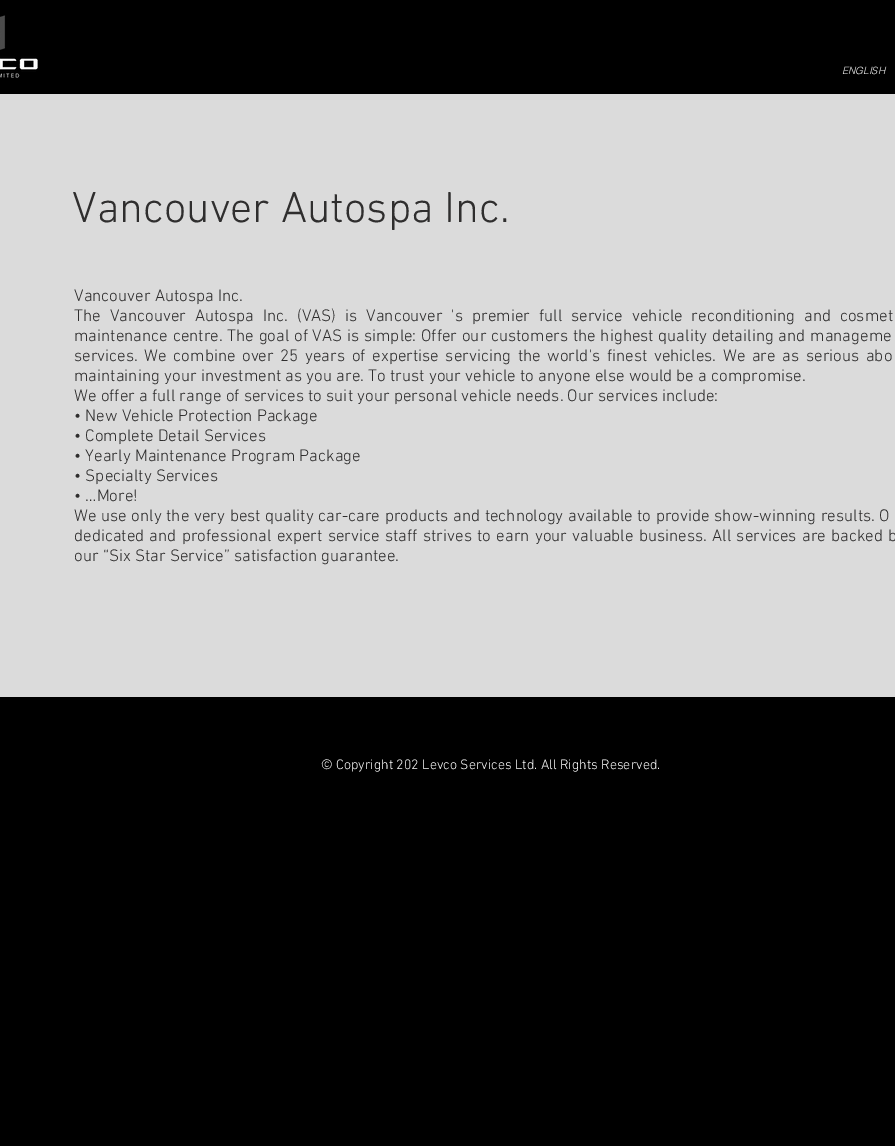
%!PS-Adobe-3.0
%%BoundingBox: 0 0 895 1146
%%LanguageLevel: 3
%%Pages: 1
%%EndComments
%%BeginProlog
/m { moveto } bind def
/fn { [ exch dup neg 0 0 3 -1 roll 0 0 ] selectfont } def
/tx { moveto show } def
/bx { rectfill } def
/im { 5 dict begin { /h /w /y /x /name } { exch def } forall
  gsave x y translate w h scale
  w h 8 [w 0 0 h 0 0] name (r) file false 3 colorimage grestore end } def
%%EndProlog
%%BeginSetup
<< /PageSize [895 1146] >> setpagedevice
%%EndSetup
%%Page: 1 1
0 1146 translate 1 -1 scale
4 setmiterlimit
0 setgray
0 0 895 1146 bx
(image0.raw) 0 15 38 63 im
/helvetica-LightItalic 10 fn
0.949 setgray
(ENGLISH) 842 74 tx
0.859 setgray
0 94 895 603 bx
/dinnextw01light-Light 44 fn
0.184 0.18 0.18 setrgbcolor
(Vancouver Autospa Inc.) 72 222 tx
/dinnextw01light-Light 17 fn
(Vancouver Autospa Inc.) 74 301 tx
74 321 m 4.75 0 32 (The Vancouver Autospa Inc. \(VAS\) is Vancouver 's premier full service vehicle reconditioning and cosmet) widthshow
74 341 m 0.5 0 32 (maintenance centre. The goal of VAS is simple: Offer our customers the highest quality detailing and manageme) widthshow
74 361 m 2.4 0 32 (services. We combine over 25 years of expertise servicing the world's finest vehicles. We are as serious abo) widthshow
(maintaining your investment as you are. To trust your vehicle to anyone else would be a compromise.) 74 381 tx
(We offer a full range of services to suit your personal vehicle needs. Our services include:) 74 401 tx
(• New Vehicle Protection Package) 74 421 tx
(• Complete Detail Services) 74 441 tx
(• Yearly Maintenance Program Package) 74 461 tx
(• Specialty Services) 74 481 tx
(• …More!) 74 501 tx
74 521 m 0.4 0 32 (We use only the very best quality car-care products and technology available to provide show-winning results. O) widthshow
74 541 m 1.1 0 32 (dedicated and professional expert service staff strives to earn your valuable business. All services are backed b) widthshow
(our “Six Star Service” satisfaction guarantee.) 74 561 tx
/dinnextw01light-Light 14 fn
1 setgray
(© Copyright 202 Levco Services Ltd. All Rights Reserved.) 321 769 tx
showpage
%%EOF
